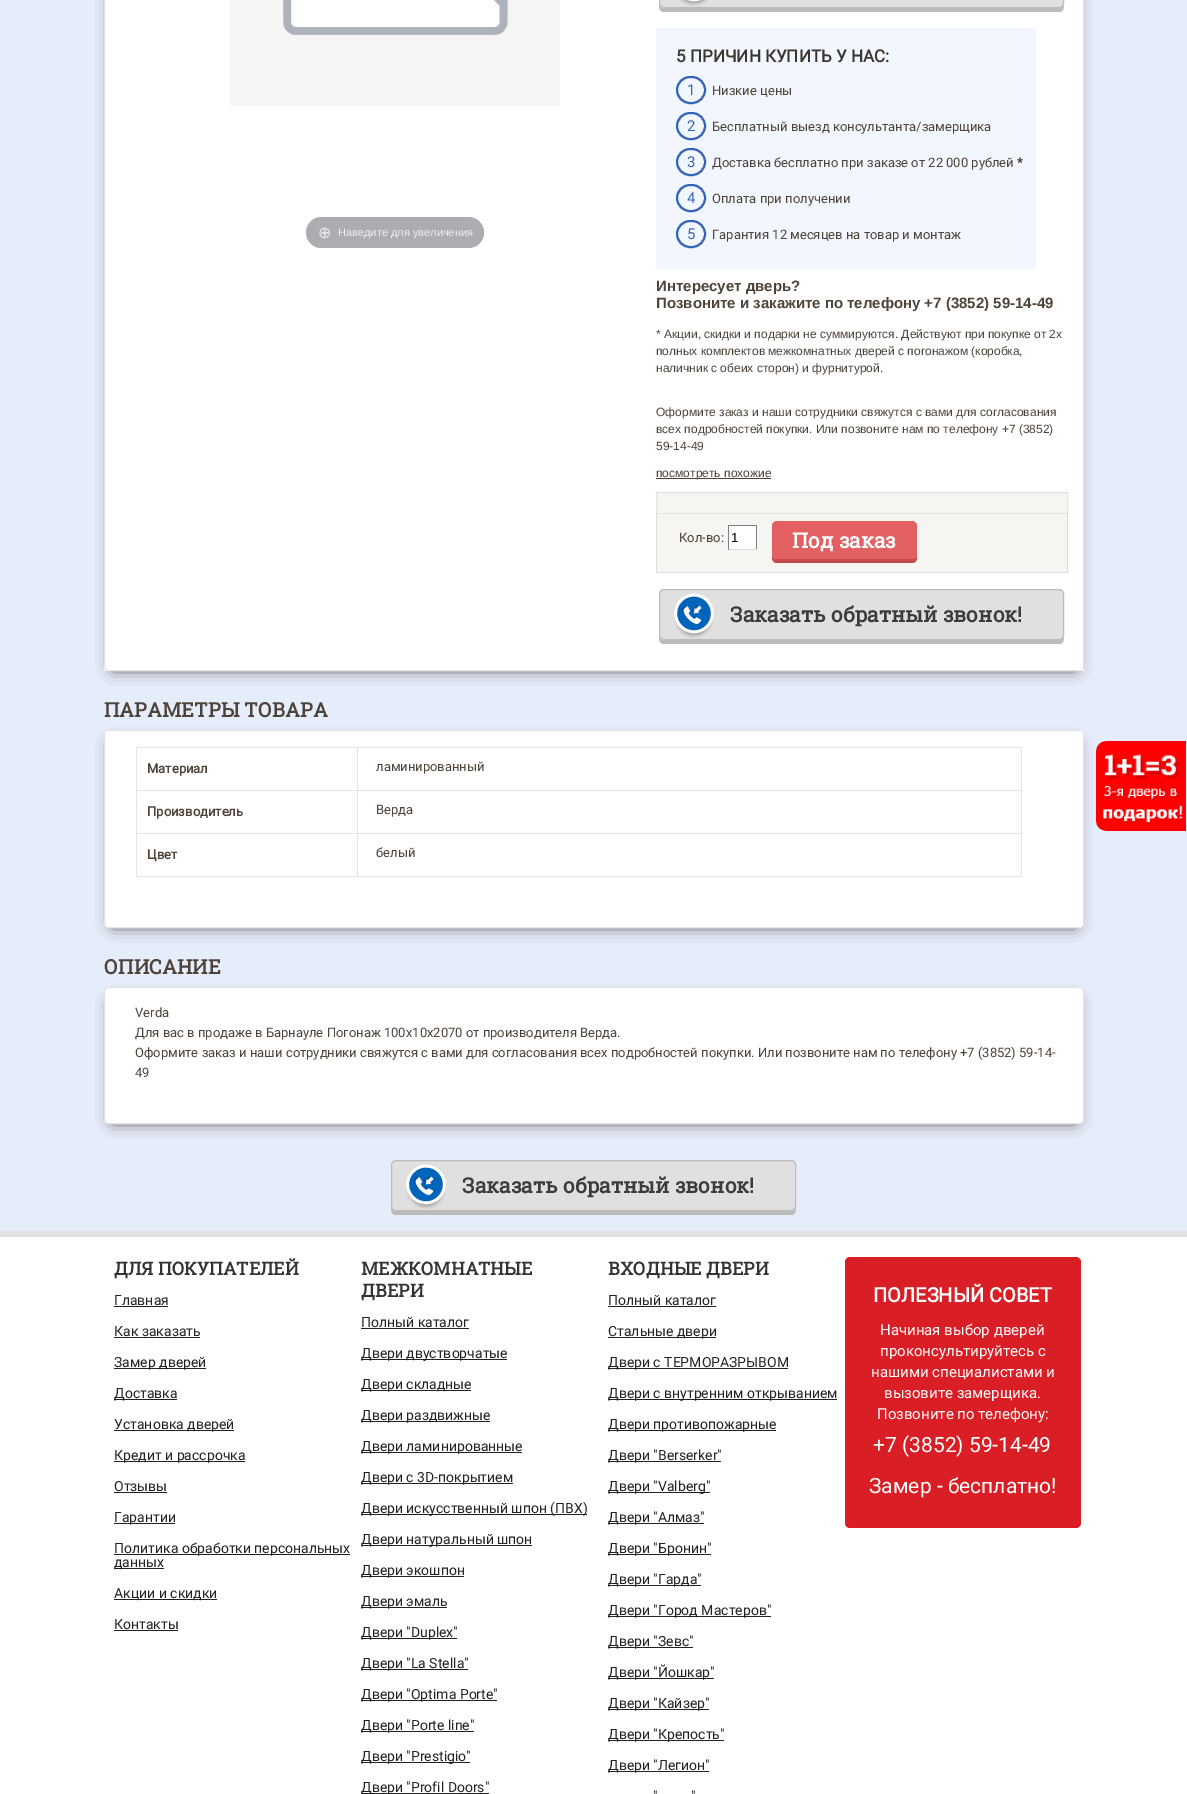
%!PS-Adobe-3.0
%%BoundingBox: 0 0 1187 1794
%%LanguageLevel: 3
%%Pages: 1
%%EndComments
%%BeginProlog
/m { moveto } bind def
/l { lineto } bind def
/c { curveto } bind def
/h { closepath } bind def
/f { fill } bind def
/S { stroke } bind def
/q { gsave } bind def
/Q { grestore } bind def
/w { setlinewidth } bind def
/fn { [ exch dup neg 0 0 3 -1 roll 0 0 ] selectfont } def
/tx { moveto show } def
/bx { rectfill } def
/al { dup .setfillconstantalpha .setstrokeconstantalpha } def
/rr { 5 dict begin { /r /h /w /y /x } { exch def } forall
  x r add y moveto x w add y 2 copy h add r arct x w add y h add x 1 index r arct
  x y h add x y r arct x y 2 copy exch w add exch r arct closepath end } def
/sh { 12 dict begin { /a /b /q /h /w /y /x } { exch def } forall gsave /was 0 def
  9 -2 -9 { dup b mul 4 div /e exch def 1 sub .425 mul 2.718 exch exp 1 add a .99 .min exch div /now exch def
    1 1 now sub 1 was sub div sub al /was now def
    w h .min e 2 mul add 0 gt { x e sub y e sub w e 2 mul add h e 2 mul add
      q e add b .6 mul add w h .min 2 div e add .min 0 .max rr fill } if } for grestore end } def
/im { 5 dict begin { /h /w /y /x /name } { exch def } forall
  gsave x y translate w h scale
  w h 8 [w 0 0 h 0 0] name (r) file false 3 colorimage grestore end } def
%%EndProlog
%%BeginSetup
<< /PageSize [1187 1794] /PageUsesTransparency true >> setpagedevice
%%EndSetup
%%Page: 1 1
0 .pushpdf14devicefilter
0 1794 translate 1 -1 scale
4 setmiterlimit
0.902 0.929 0.98 setrgbcolor
0 0 1187 1794 bx
0 setgray
113 -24 962 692 0 8 0.8 sh
1 setgray
104 0 980 671 bx
0.906 0.89 0.878 setrgbcolor
104.5 -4.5 979 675 3.5 rr S
(image0.raw) 230 0 330 106 im
0.678 0.678 0.694 setrgbcolor
306 217 178 31 15.5 rr f
/DejaVuSans-Regular 16 fn
0.933 setgray
(⊕) 318 238 tx
/LiberationSans-Regular 11 fn
(Наведите для увеличения) 338 236 tx
0.733 setgray
659 3 m 659 7 659 12 664 12 c 1059 12 l 1064 12 1064 7 1064 3 c 1064 6 1062 8 1059 8 c 664 8 l 661 8 659 6 659 3 c h f
0.878 setgray
659 -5 405 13 5 rr f
(image1.raw) 680 0 28 6 im
0.733 setgray
659.5 -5.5 404 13 4.5 rr S
0.949 0.969 1 setrgbcolor
656 28 380 241 bx
/Roboto-Bold 17 fn
0.231 0.212 0.18 setrgbcolor
(5 ПРИЧИН КУПИТЬ У НАС:) 676 62 tx
0.2 0.392 0.718 setrgbcolor
2 w
677 77 28 26 13 rr S
/Roboto-Regular 15 fn
(1) 687 95 tx
/Roboto-Regular 13 fn
0.302 0.263 0.22 setrgbcolor
(Низкие цены) 712 95 tx
0.2 0.392 0.718 setrgbcolor
677 113 28 26 13 rr S
/Roboto-Regular 15 fn
(2) 687 131 tx
/Roboto-Regular 13 fn
0.302 0.263 0.22 setrgbcolor
(Бесплатный выезд консультанта/замерщика) 712 131 tx
0.2 0.392 0.718 setrgbcolor
677 149 28 26 13 rr S
/Roboto-Regular 15 fn
(3) 687 167 tx
/Roboto-Regular 13 fn
0.302 0.263 0.22 setrgbcolor
(Доставка бесплатно при заказе от 22 000 рублей) 712 167 tx
/Roboto-Bold 13 fn
(*) 1017 167 tx
0.2 0.392 0.718 setrgbcolor
677 185 28 26 13 rr S
/Roboto-Regular 15 fn
(4) 687 203 tx
/Roboto-Regular 13 fn
0.302 0.263 0.22 setrgbcolor
(Оплата при получении) 712 203 tx
0.2 0.392 0.718 setrgbcolor
677 221 28 26 13 rr S
/Roboto-Regular 15 fn
(5) 687 239 tx
/Roboto-Regular 13 fn
0.302 0.263 0.22 setrgbcolor
(Гарантия 12 месяцев на товар и монтаж) 712 239 tx
/LiberationSans-Bold 15 fn
(Интересует дверь?) 656 291 tx
(Позвоните и закажите по телефону +7 \(3852\) 59-14-49) 656 308 tx
/LiberationSans-Regular 12 fn
(* Акции, скидки и подарки не суммируются. Действуют при покупке от 2х) 656 338 tx
(полных комплектов межкомнатных дверей с погонажом \(коробка,) 656 355 tx
(наличник с обеих сторон\) и фурнитурой.) 656 372 tx
(Оформите заказ и наши сотрудники свяжутся с вами для согласования) 656 416 tx
(всех подробностей покупки. Или позвоните нам по телефону +7 \(3852\)) 656 433 tx
(59-14-49) 656 450 tx
656 478 115 1 bx
(посмотреть похожие) 656 477 tx
0.969 0.961 0.945 setrgbcolor
656.5 492.5 m 1067.5 492.5 l 1067.5 513.5 l 656.5 513.5 l h q f Q
0.906 0.89 0.878 setrgbcolor
1 w
S
0.969 0.961 0.945 setrgbcolor
657 514 410 58 bx
0.867 setgray
1067 514 1 59 bx
656 572 412 1 bx
656 514 1 59 bx
/Roboto-Regular 13 fn
0.302 0.263 0.22 setrgbcolor
(Кол-во:) 679 542 tx
1 setgray
729 526 27 23 bx
0.498 setgray
728 525 29 1 bx
756 525 1 25 bx
0.851 setgray
728 549 29 1 bx
0.498 setgray
728 525 1 25 bx
/LiberationSans-Regular 13 fn
0 setgray
(1) 731 542 tx
0.765 0.29 0.302 setrgbcolor
772 554 m 772 558 l 772 561 774 563 777 563 c 912 563 l 915 563 917 561 917 558 c 917 554 l 917 557 915 559 912 559 c 777 559 l 774 559 772 557 772 554 c h f
0.886 0.373 0.384 setrgbcolor
772 521 145 38 5 rr f
/RobotoSlab-Bold 21 fn
1 setgray
(Под заказ) 792 548 tx
0.733 setgray
659 635 m 659 639 659 644 664 644 c 1059 644 l 1064 644 1064 639 1064 635 c 1064 638 1062 640 1059 640 c 664 640 l 661 640 659 638 659 635 c h f
0.878 setgray
659 589 405 51 5 rr f
(image2.raw) 674 593 40 45 im
0.733 setgray
659.5 589.5 404 50 4.5 rr S
0.235 setgray
(Заказать обратный звонок!) 730 622 tx
/RobotoSlab-Bold 20 fn
0.302 0.263 0.22 setrgbcolor
(ПАРАМЕТРЫ ТОВАРА) 104 717 tx
0 setgray
113 745 962 180 0 8 0.8 sh
1 setgray
104.5 730.5 979 197 3.5 rr q f Q
0.906 0.89 0.878 setrgbcolor
S
357 747 665 1 bx
357 790 665 1 bx
357 833 665 1 bx
1021 833 1 44 bx
357 876 665 1 bx
357 833 1 44 bx
136 833 222 1 bx
357 790 1 44 bx
136 790 222 1 bx
357 747 1 44 bx
136 747 222 1 bx
136 876 222 1 bx
136 833 1 44 bx
136 790 1 44 bx
136 747 1 44 bx
/Roboto-Bold 13 fn
0.302 0.263 0.22 setrgbcolor
(Материал) 147 773 tx
0.906 0.89 0.878 setrgbcolor
1021 790 1 44 bx
1021 747 1 44 bx
/Roboto-Regular 13 fn
0.302 0.263 0.22 setrgbcolor
(ламинированный) 376 771 tx
/Roboto-Bold 13 fn
(Производитель) 147 816 tx
/Roboto-Regular 13 fn
(Верда) 376 814 tx
/Roboto-Bold 13 fn
(Цвет) 147 859 tx
/Roboto-Regular 13 fn
(белый) 376 857 tx
/RobotoSlab-Bold 20 fn
(ОПИСАНИЕ) 104 974 tx
0 setgray
113 1002 962 119 0 8 0.8 sh
1 setgray
104.5 987.5 979 136 3.5 rr q f Q
0.906 0.89 0.878 setrgbcolor
S
/Roboto-Regular 13 fn
0.302 0.263 0.22 setrgbcolor
(Verda) 135 1017 tx
(Для вас в продаже в Барнауле Погонаж 100х10х2070 от производителя Верда.) 135 1037 tx
(Оформите заказ и наши сотрудники свяжутся с вами для согласования всех подробностей покупки. Или позвоните нам по телефону +7 \(3852\) 59-14-) 135 1057 tx
(49) 135 1077 tx
0.733 setgray
391 1206 m 391 1210 391 1215 396 1215 c 791 1215 l 796 1215 796 1210 796 1206 c 796 1209 794 1211 791 1211 c 396 1211 l 393 1211 391 1209 391 1206 c h f
0.878 setgray
391 1160 405 51 5 rr f
(image2.raw) 406 1164 40 45 im
0.733 setgray
391.5 1160.5 404 50 4.5 rr S
/RobotoSlab-Bold 21 fn
0.235 setgray
(Заказать обратный звонок!) 462 1193 tx
1 setgray
0 1237 1187 557 bx
0.886 0.882 0.89 setrgbcolor
0 1231 1187 6 bx
/RobotoSlab-Bold 18 fn
0.2 setgray
(ДЛЯ ПОКУПАТЕЛЕЙ) 114 1275 tx
/Roboto-Regular 14 fn
0.133 setgray
(Главная) 114 1305 tx
114 1306 54 1 bx
(Как заказать) 114 1336 tx
114 1337 86 1 bx
114 1368 92 1 bx
(Замер дверей) 114 1367 tx
114 1399 63 1 bx
(Доставка) 114 1398 tx
114 1430 120 1 bx
(Установка дверей) 114 1429 tx
114 1461 131 1 bx
(Кредит и рассрочка) 114 1460 tx
(Отзывы) 114 1491 tx
114 1492 53 1 bx
114 1523 61 1 bx
(Гарантии) 114 1522 tx
114 1554 236 1 bx
(Политика обработки персональных) 114 1553 tx
114 1568 50 1 bx
(данных) 114 1567 tx
114 1599 103 1 bx
(Акции и скидки) 114 1598 tx
(Контакты) 114 1629 tx
114 1630 64 1 bx
/RobotoSlab-Bold 18 fn
0.2 setgray
(МЕЖКОМНАТНЫЕ) 361 1275 tx
(ДВЕРИ) 361 1297 tx
/Roboto-Regular 14 fn
0.133 setgray
(Полный каталог) 361 1327 tx
361 1328 108 1 bx
361 1359 146 1 bx
(Двери двустворчатые) 361 1358 tx
361 1390 110 1 bx
(Двери складные) 361 1389 tx
361 1421 129 1 bx
(Двери раздвижные) 361 1420 tx
361 1452 161 1 bx
(Двери ламинированные) 361 1451 tx
361 1483 152 1 bx
(Двери с 3D-покрытием) 361 1482 tx
361 1514 226 1 bx
(Двери искусственный шпон \(ПВХ\)) 361 1513 tx
361 1545 171 1 bx
(Двери натуральный шпон) 361 1544 tx
361 1576 103 1 bx
(Двери экошпон) 361 1575 tx
361 1607 86 1 bx
(Двери эмаль) 361 1606 tx
361 1638 96 1 bx
(Двери "Duplex") 361 1637 tx
361 1669 107 1 bx
(Двери "La Stella") 361 1668 tx
361 1700 136 1 bx
(Двери "Optima Porte") 361 1699 tx
361 1731 113 1 bx
(Двери "Porte line") 361 1730 tx
361 1762 109 1 bx
(Двери "Prestigio") 361 1761 tx
361 1793 128 1 bx
(Двери "Profil Doors") 361 1792 tx
/RobotoSlab-Bold 18 fn
0.2 setgray
(ВХОДНЫЕ ДВЕРИ) 608 1275 tx
/Roboto-Regular 14 fn
0.133 setgray
(Полный каталог) 608 1305 tx
608 1306 108 1 bx
608 1337 108 1 bx
(Стальные двери) 608 1336 tx
608 1368 180 1 bx
(Двери с ТЕРМОРАЗРЫВОМ) 608 1367 tx
608 1399 229 1 bx
(Двери с внутренним открыванием) 608 1398 tx
608 1430 168 1 bx
(Двери противопожарные) 608 1429 tx
608 1461 113 1 bx
(Двери "Berserker") 608 1460 tx
608 1492 102 1 bx
(Двери "Valberg") 608 1491 tx
608 1523 96 1 bx
(Двери "Алмаз") 608 1522 tx
608 1554 103 1 bx
(Двери "Бронин") 608 1553 tx
608 1585 93 1 bx
(Двери "Гарда") 608 1584 tx
608 1616 163 1 bx
(Двери "Город Мастеров") 608 1615 tx
608 1647 85 1 bx
(Двери "Зевс") 608 1646 tx
608 1678 106 1 bx
(Двери "Йошкар") 608 1677 tx
608 1709 101 1 bx
(Двери "Кайзер") 608 1708 tx
608 1740 116 1 bx
(Двери "Крепость") 608 1739 tx
608 1771 101 1 bx
(Двери "Легион") 608 1770 tx
(") 653 1801 tx
(") 691 1801 tx
0.851 0.122 0.145 setrgbcolor
845 1257 236 271 5 rr f
/Roboto-Bold 20 fn
1 setgray
(ПОЛЕЗНЫЙ СОВЕТ) 873 1302 tx
/Roboto-Regular 15 fn
(Начиная выбор дверей) 880 1335 tx
(проконсультируйтесь с) 880 1356 tx
(нашими специалистами и) 871 1377 tx
(вызовите замерщика.) 884 1398 tx
(Позвоните по телефону:) 877 1419 tx
/Roboto-Regular 21 fn
(+7 \(3852\) 59-14-49) 873 1452 tx
(Замер - бесплатно!) 869 1493 tx
(image3.raw) 1096 741 90 90 im
.poppdf14devicefilter showpage
%%EOF
